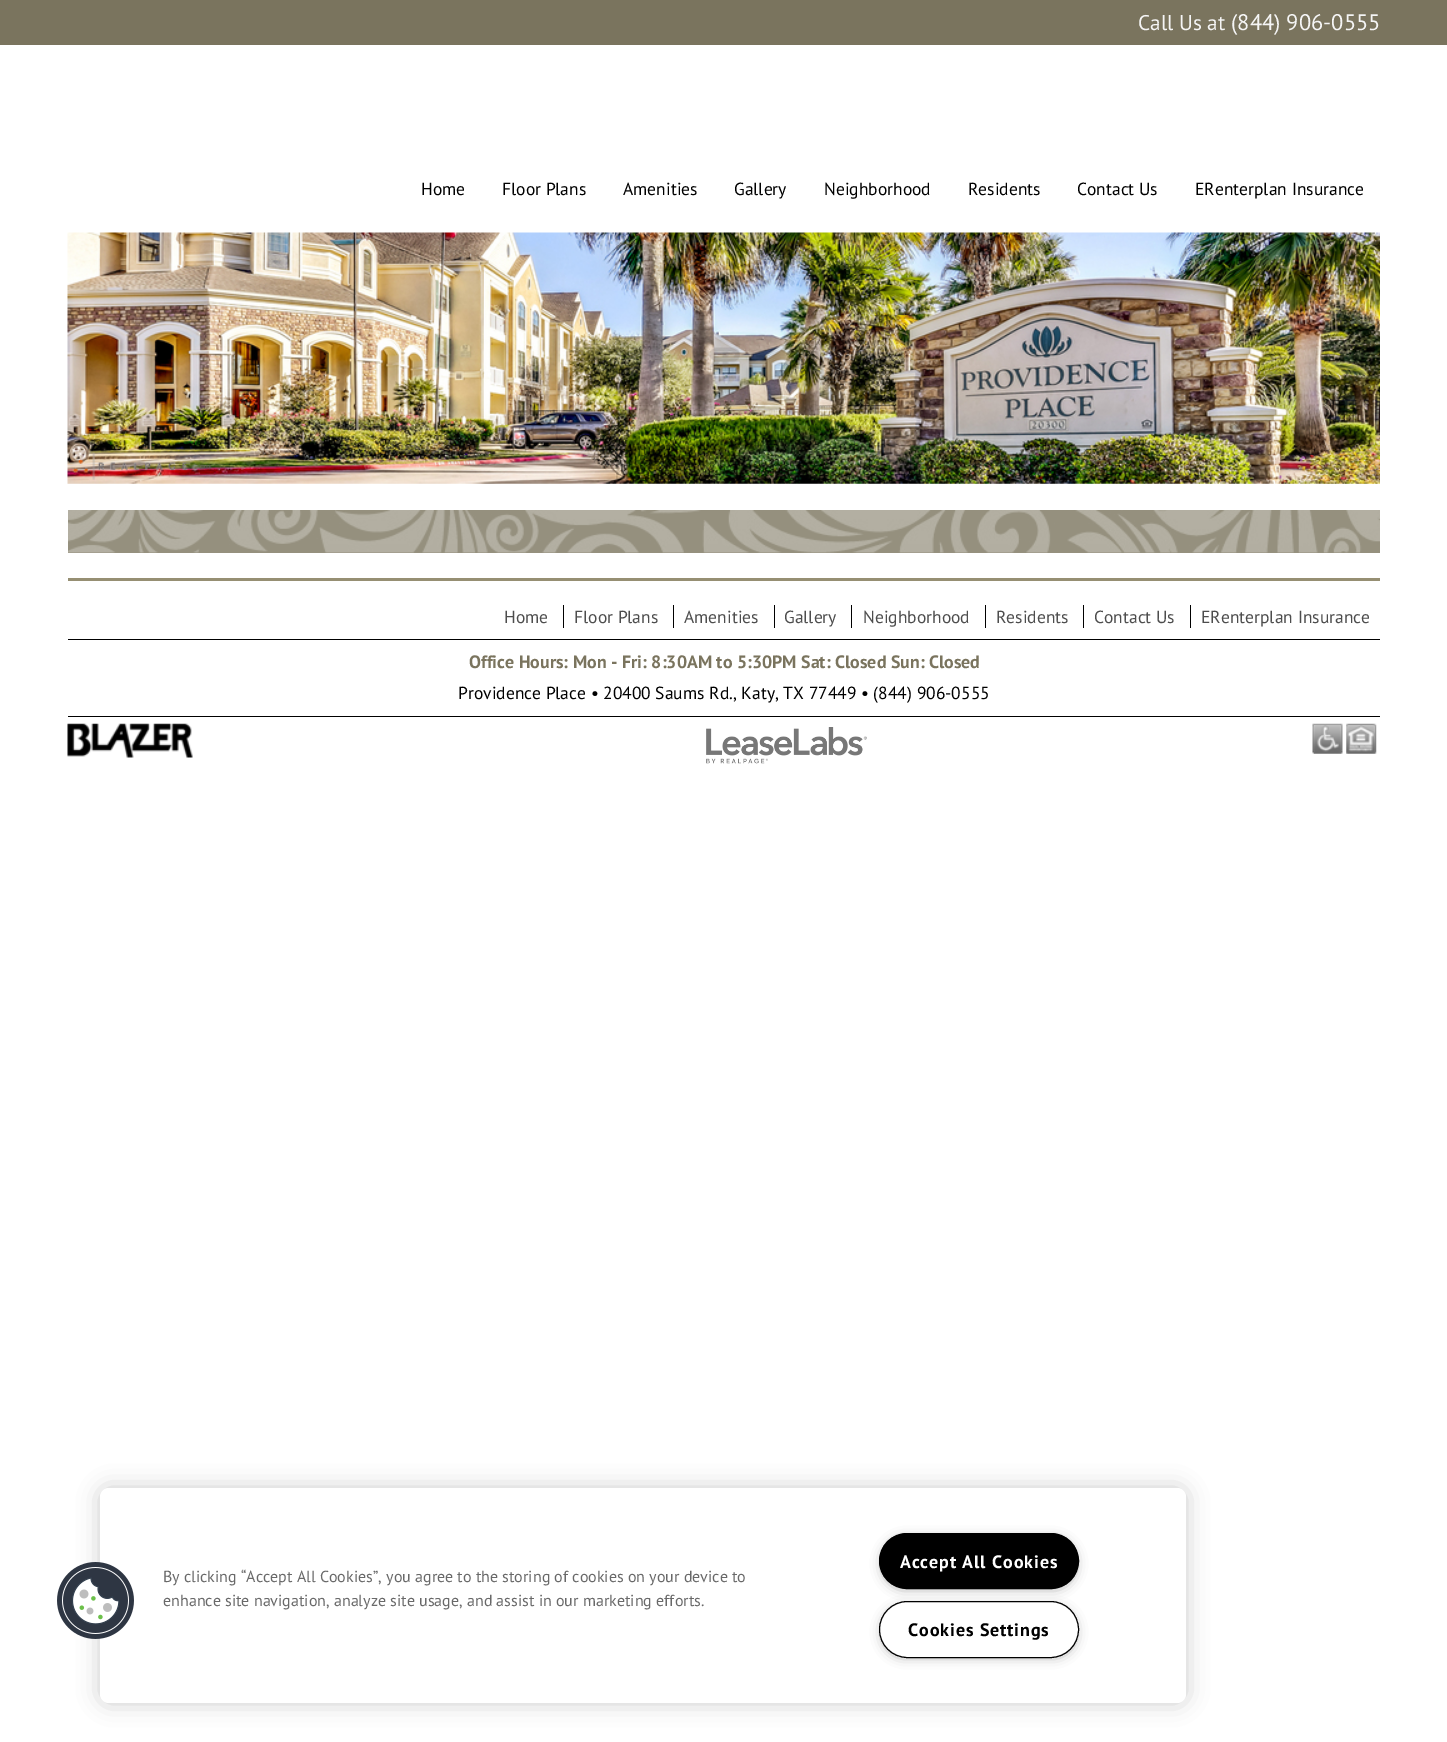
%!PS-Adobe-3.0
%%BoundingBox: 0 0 1447 1742
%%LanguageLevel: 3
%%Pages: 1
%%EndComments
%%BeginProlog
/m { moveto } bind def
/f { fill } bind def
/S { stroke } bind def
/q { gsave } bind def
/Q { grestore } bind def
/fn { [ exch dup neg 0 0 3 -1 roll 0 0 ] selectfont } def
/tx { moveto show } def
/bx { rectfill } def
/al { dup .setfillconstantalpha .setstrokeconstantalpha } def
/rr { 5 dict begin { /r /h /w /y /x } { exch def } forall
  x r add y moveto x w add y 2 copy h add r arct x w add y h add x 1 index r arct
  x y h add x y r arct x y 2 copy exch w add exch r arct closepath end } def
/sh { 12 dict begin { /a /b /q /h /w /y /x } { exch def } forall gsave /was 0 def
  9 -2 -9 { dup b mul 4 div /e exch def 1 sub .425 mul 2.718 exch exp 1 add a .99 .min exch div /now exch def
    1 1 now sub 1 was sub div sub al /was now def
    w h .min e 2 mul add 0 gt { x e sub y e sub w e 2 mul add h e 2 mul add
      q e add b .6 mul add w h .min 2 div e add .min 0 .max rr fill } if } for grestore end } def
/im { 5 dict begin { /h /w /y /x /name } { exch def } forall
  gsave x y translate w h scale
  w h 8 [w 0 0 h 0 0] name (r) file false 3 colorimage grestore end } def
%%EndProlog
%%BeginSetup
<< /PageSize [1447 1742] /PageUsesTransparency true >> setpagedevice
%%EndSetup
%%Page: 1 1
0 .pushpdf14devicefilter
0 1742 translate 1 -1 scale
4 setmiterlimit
1 setgray
0 0 1447 1742 bx
0.478 0.455 0.369 setrgbcolor
0 0 1447 45 bx
/PTSans-Regular 21.25 fn
0.961 setgray
(Call Us at) 1138 30 tx
/PTSans-Regular 22.5 fn
(\(844\) 906-0555) 1231 30 tx
/PTSans-Regular 17.5 fn
0 setgray
(Home) 421 195 tx
(Floor Plans) 502 195 tx
(Amenities) 623 195 tx
(Gallery) 734 195 tx
(Neighborhood) 824 195 tx
(Residents) 968 195 tx
(Contact Us) 1077 195 tx
(ERenterplan Insurance) 1195 195 tx
(image0.raw) 67 232 1313 252 im
0.584 0.565 0.494 setrgbcolor
68 510 1312 43 bx
(image1.raw) 68 510 1312 43 im
0.588 0.561 0.451 setrgbcolor
68 578 1312 3 bx
0 setgray
68 639 1312 1 bx
0.302 setgray
(Home) 504 623 tx
(Floor Plans) 574 623 tx
0 setgray
563 605 1 23 bx
0.302 setgray
(Amenities) 684 623 tx
0 setgray
673 605 1 23 bx
0.302 setgray
(Gallery) 784 623 tx
0 setgray
774 605 1 23 bx
0.302 setgray
(Neighborhood) 863 623 tx
0 setgray
851 605 1 23 bx
0.302 setgray
(Residents) 996 623 tx
0 setgray
985 605 1 23 bx
0.302 setgray
(Contact Us) 1094 623 tx
0 setgray
1083 605 1 23 bx
0.302 setgray
(ERenterplan Insurance) 1201 623 tx
0 setgray
1190 605 1 23 bx
68 716 1312 1 bx
/PTSans-Bold 17.9 fn
0.478 0.455 0.369 setrgbcolor
(Office Hours: Mon - Fri: 8:30AM to 5:30PM Sat: Closed Sun: Closed) 469 668 tx
/PTSans-Regular 17.5 fn
0 setgray
(Providence Place • 20400 Saums Rd., Katy, TX 77449 • \(844\) 906-0555) 458 699 tx
(image2.raw) 67 723 126 35 im
(image3.raw) 706 727 161 37 im
(image4.raw) 1312 723 31 31 im
(image5.raw) 1346 723 31 31 im
100 1488 1086 215 9 11 0.2 sh
1 setgray
100 1488 1086 215 9 rr f
(image6.raw) 57 1562 77 77 im
/PTSans-Regular 16 fn
0.412 setgray
(By clicking “Accept All Cookies”, you agree to the storing of cookies on your device to) 163 1582 tx
(enhance site navigation, analyze site usage, and assist in our marketing efforts.) 163 1606 tx
0.6 setgray
883 1539 192 49 24.5 6 1 sh
0 setgray
879.5 1533.5 199 55 27.5 rr q f Q
S
/PTSans-Bold 18 fn
1 setgray
900 1568 m 0.9 0 (Accept All Cookies) ashow
0.6 setgray
883 1608 192 48 24 6 1 sh
1 setgray
879.5 1601.5 199 56 28 rr q f Q
0 setgray
S
908 1636 m 0.9 0 (Cookies Settings) ashow
.poppdf14devicefilter showpage
%%EOF
